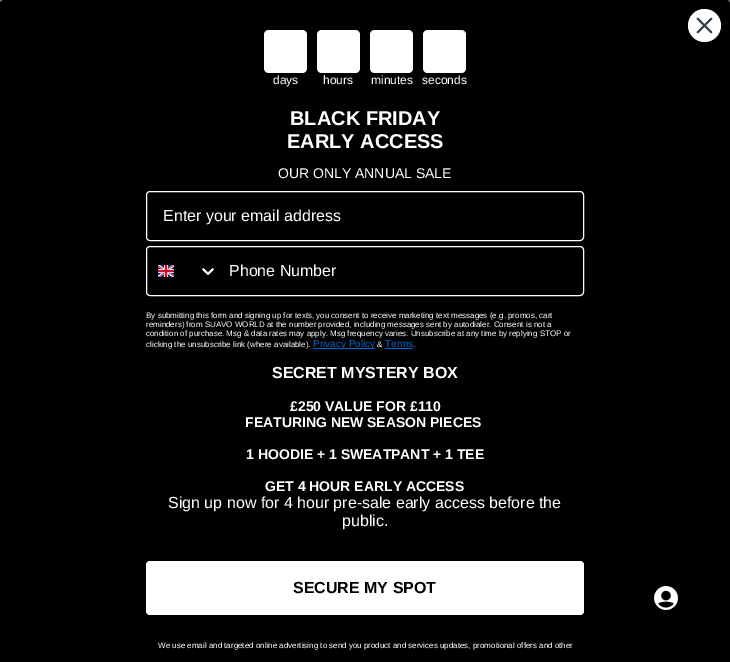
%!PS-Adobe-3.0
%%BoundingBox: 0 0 730 662
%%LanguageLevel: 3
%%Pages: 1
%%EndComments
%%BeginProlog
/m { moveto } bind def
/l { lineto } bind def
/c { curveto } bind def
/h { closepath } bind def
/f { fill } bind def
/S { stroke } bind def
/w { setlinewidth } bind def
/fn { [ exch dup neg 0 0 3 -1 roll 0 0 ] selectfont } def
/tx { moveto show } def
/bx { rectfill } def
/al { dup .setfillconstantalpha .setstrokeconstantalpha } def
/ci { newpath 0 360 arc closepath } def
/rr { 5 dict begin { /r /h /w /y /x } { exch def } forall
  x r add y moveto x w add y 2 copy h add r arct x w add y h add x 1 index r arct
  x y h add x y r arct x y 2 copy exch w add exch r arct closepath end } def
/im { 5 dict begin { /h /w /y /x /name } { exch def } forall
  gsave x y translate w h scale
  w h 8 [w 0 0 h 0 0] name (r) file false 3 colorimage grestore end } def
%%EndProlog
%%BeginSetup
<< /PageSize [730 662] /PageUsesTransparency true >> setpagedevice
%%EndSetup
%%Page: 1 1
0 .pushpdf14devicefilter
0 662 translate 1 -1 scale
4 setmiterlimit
0.447 setgray
0 0 730 662 bx
0 setgray
4 0 m 726 0 l 728 0 730 2 730 4 c 730 662 l 0 662 l 0 4 l 0 2 2 0 4 0 c h f
1 setgray
704.5 25.5 16.5 ci f
0.216 0.247 0.278 setrgbcolor
1.8 w
1 setlinecap
1 setlinejoin
697.5 18.5 m 711.5 32.5 l 697.5 32.5 m 711.5 18.5 l h S
1 setgray
269 30 m 302 30 l 305 30 307 32 307 35 c 307 52 l 264 52 l 264 35 l 264 32 266 30 269 30 c h f
264 52 m 307 52 l 307 68 l 307 71 305 73 302 73 c 269 73 l 266 73 264 71 264 68 c h f
/LiberationSans-Regular 12 fn
(days) 273 84 tx
322 30 m 355 30 l 358 30 360 32 360 35 c 360 52 l 317 52 l 317 35 l 317 32 319 30 322 30 c h f
317 52 m 360 52 l 360 68 l 360 71 358 73 355 73 c 322 73 l 319 73 317 71 317 68 c h f
(hours) 323 84 tx
375 30 m 408 30 l 411 30 413 32 413 35 c 413 52 l 370 52 l 370 35 l 370 32 372 30 375 30 c h f
370 52 m 413 52 l 413 68 l 413 71 411 73 408 73 c 375 73 l 372 73 370 71 370 68 c h f
(minutes) 371 84 tx
428 30 m 461 30 l 464 30 466 32 466 35 c 466 52 l 423 52 l 423 35 l 423 32 425 30 428 30 c h f
423 52 m 466 52 l 466 68 l 466 71 464 73 461 73 c 428 73 l 425 73 423 71 423 68 c h f
(seconds) 422 84 tx
/LiberationSans-Bold 20 fn
(BLACK FRIDAY) 290 125 tx
(EARLY ACCESS) 287 148 tx
/LiberationSans-Regular 14 fn
(OUR ONLY ANNUAL SALE) 278 178 tx
1 w
0 setlinecap
0 setlinejoin
146.5 191.5 437 49 3.5 rr S
/LiberationSans-Regular 16 fn
(Enter your email address) 163 221 tx
146.5 246.5 437 49 3.5 rr S
(image0.raw) 158 265 16 12 im
(image1.raw) 202 268 12 7 im
(Phone Number) 229 276 tx
/LiberationSans-Regular 8 fn
1 0.969 0.969 setrgbcolor
(By submitting this form and signing up for texts, you consent to receive marketing text messages \(e.g. promos, cart) 146 318 tx
(reminders\) from SUAVO WORLD at the number provided, including messages sent by autodialer. Consent is not a) 146 327 tx
(condition of purchase. Msg & data rates may apply. Msg frequency varies. Unsubscribe at any time by replying STOP or) 146 336 tx
(clicking the unsubscribe link \(where available\).) 146 347 tx
0 0.4 0.8 setrgbcolor
313 348 62 1 bx
/LiberationSans-Regular 10 fn
(Privacy Policy) 313 347 tx
/LiberationSans-Regular 8 fn
1 0.969 0.969 setrgbcolor
(&) 377 347 tx
/LiberationSans-Regular 10 fn
0 0.4 0.8 setrgbcolor
(Terms) 385 347 tx
385 348 28 1 bx
/LiberationSans-Regular 8 fn
1 0.969 0.969 setrgbcolor
(.) 413 347 tx
/LiberationSans-Bold 16 fn
1 setgray
(SECRET MYSTERY BOX) 272 378 tx
/LiberationSans-Bold 14 fn
(£250 VALUE FOR £110) 290 411 tx
(FEATURING NEW SEASON PIECES) 245 427 tx
(1 HOODIE + 1 SWEATPANT + 1 TEE) 246 459 tx
(GET 4 HOUR EARLY ACCESS) 265 491 tx
/LiberationSans-Regular 16 fn
(Sign up now for 4 hour pre-sale early access before the) 168 508 tx
(public.) 342 526 tx
146 561 438 54 4 rr f
/LiberationSans-Bold 16 fn
0 setgray
(SECURE MY SPOT) 293 593 tx
/LiberationSans-Regular 8 fn
1 setgray
(We use email and targeted online advertising to send you product and services updates, promotional offers and other) 158 648 tx
0.04 al
0.216 0.247 0.278 setrgbcolor
641.5 573.5 49 49 rectstroke
1 al
(image2.raw) 654 586 24 24 im
.poppdf14devicefilter showpage
%%EOF
